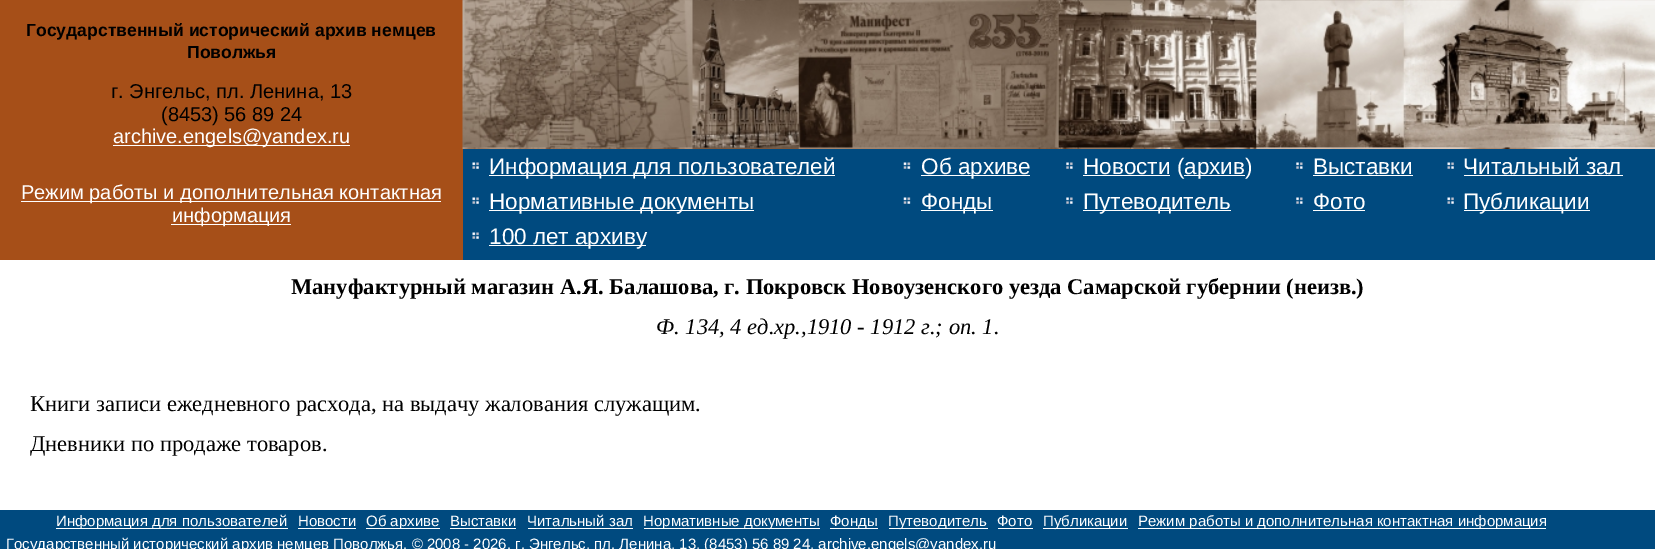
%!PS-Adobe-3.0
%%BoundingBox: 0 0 1655 549
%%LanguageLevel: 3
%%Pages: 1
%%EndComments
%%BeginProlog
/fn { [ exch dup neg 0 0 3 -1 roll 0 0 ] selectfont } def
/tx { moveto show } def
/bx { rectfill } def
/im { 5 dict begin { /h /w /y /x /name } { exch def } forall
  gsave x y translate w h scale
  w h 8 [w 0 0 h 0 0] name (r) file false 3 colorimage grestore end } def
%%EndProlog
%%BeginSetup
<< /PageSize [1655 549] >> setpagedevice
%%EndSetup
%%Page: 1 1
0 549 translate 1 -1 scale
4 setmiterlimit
0.651 0.31 0.094 setrgbcolor
0 0 1655 549 bx
/LiberationSans-Bold 17.55 fn
0 setgray
(Государственный исторический архив немцев) 26 36 tx
(Поволжья) 187 58 tx
/LiberationSans-Regular 20 fn
(г. Энгельс, пл. Ленина, 13) 111 98 tx
(\(8453\) 56 89 24) 161 121 tx
1 setgray
113 145 237 1 bx
(archive.engels@yandex.ru) 113 143 tx
(image0.raw) 462 0 1193 149 im
21 201 420 1 bx
(Режим работы и дополнительная контактная) 21 199 tx
171 224 120 1 bx
(информация) 172 222 tx
0 0.29 0.498 setrgbcolor
463 149 1192 111 bx
(image1.raw) 472 162 7 7 im
1 setgray
489 175 346 1 bx
/LiberationSans-Regular 22.5 fn
(Информация для пользователей) 489 174 tx
(image2.raw) 903 162 8 7 im
921 175 109 1 bx
(Об архиве) 921 174 tx
(image3.raw) 1066 162 7 7 im
1083 175 87 1 bx
(Новости \() 1083 174 tx
1184 175 61 1 bx
(архив\)) 1184 174 tx
(image4.raw) 1296 162 7 7 im
(Выставки) 1313 174 tx
1313 175 100 1 bx
(image1.raw) 1447 162 7 7 im
(Читальный зал) 1463 174 tx
1464 175 159 1 bx
(image1.raw) 472 197 7 7 im
489 210 265 1 bx
(Нормативные документы) 489 209 tx
(image2.raw) 903 197 8 7 im
921 210 72 1 bx
(Фонды) 921 209 tx
(image3.raw) 1066 197 7 7 im
1083 210 148 1 bx
(Путеводитель) 1083 209 tx
(image4.raw) 1296 197 7 7 im
(Фото) 1313 209 tx
1313 210 52 1 bx
(image1.raw) 1447 197 7 7 im
1464 210 126 1 bx
(Публикации) 1463 209 tx
(image1.raw) 472 232 7 7 im
489 245 157 1 bx
(100 лет архиву) 489 244 tx
0 260 1655 250 bx
/LiberationSerif-Bold 22.5 fn
0 setgray
(Мануфактурный магазин А.Я. Балашова, г. Покровск Новоузенского уезда Самарской губернии \(неизв.\)) 291 294 tx
/LiberationSerif-Italic 22.5 fn
(Ф. 134, 4 ед.хр.,1910 - 1912 г.; оп. 1.) 656 334 tx
/LiberationSerif-Regular 22.5 fn
(Книги записи ежедневного расхода, на выдачу жалования служащим.) 30 411 tx
(Дневники по продаже товаров.) 30 451 tx
0 0.29 0.498 setrgbcolor
0 510 1655 39 bx
1 setgray
56 528 232 1 bx
/LiberationSans-Regular 15 fn
(Информация для пользователей) 56 526 tx
(Новости) 298 526 tx
298 528 58 1 bx
366 528 74 1 bx
(Об архиве) 366 526 tx
(Выставки) 450 526 tx
450 528 66 1 bx
(Читальный зал) 527 526 tx
528 528 105 1 bx
644 528 176 1 bx
(Нормативные документы) 643 526 tx
830 528 48 1 bx
(Фонды) 830 526 tx
889 528 99 1 bx
(Путеводитель) 888 526 tx
(Фото) 997 526 tx
998 528 35 1 bx
1043 528 85 1 bx
(Публикации) 1043 526 tx
1138 528 408 1 bx
(Режим работы и дополнительная контактная информация) 1138 526 tx
(Государственный исторический архив немцев Поволжья. © 2008 - 2026. г. Энгельс, пл. Ленина, 13, \(8453\) 56 89 24, archive.engels@yandex.ru) 6 549 tx
showpage
%%EOF
